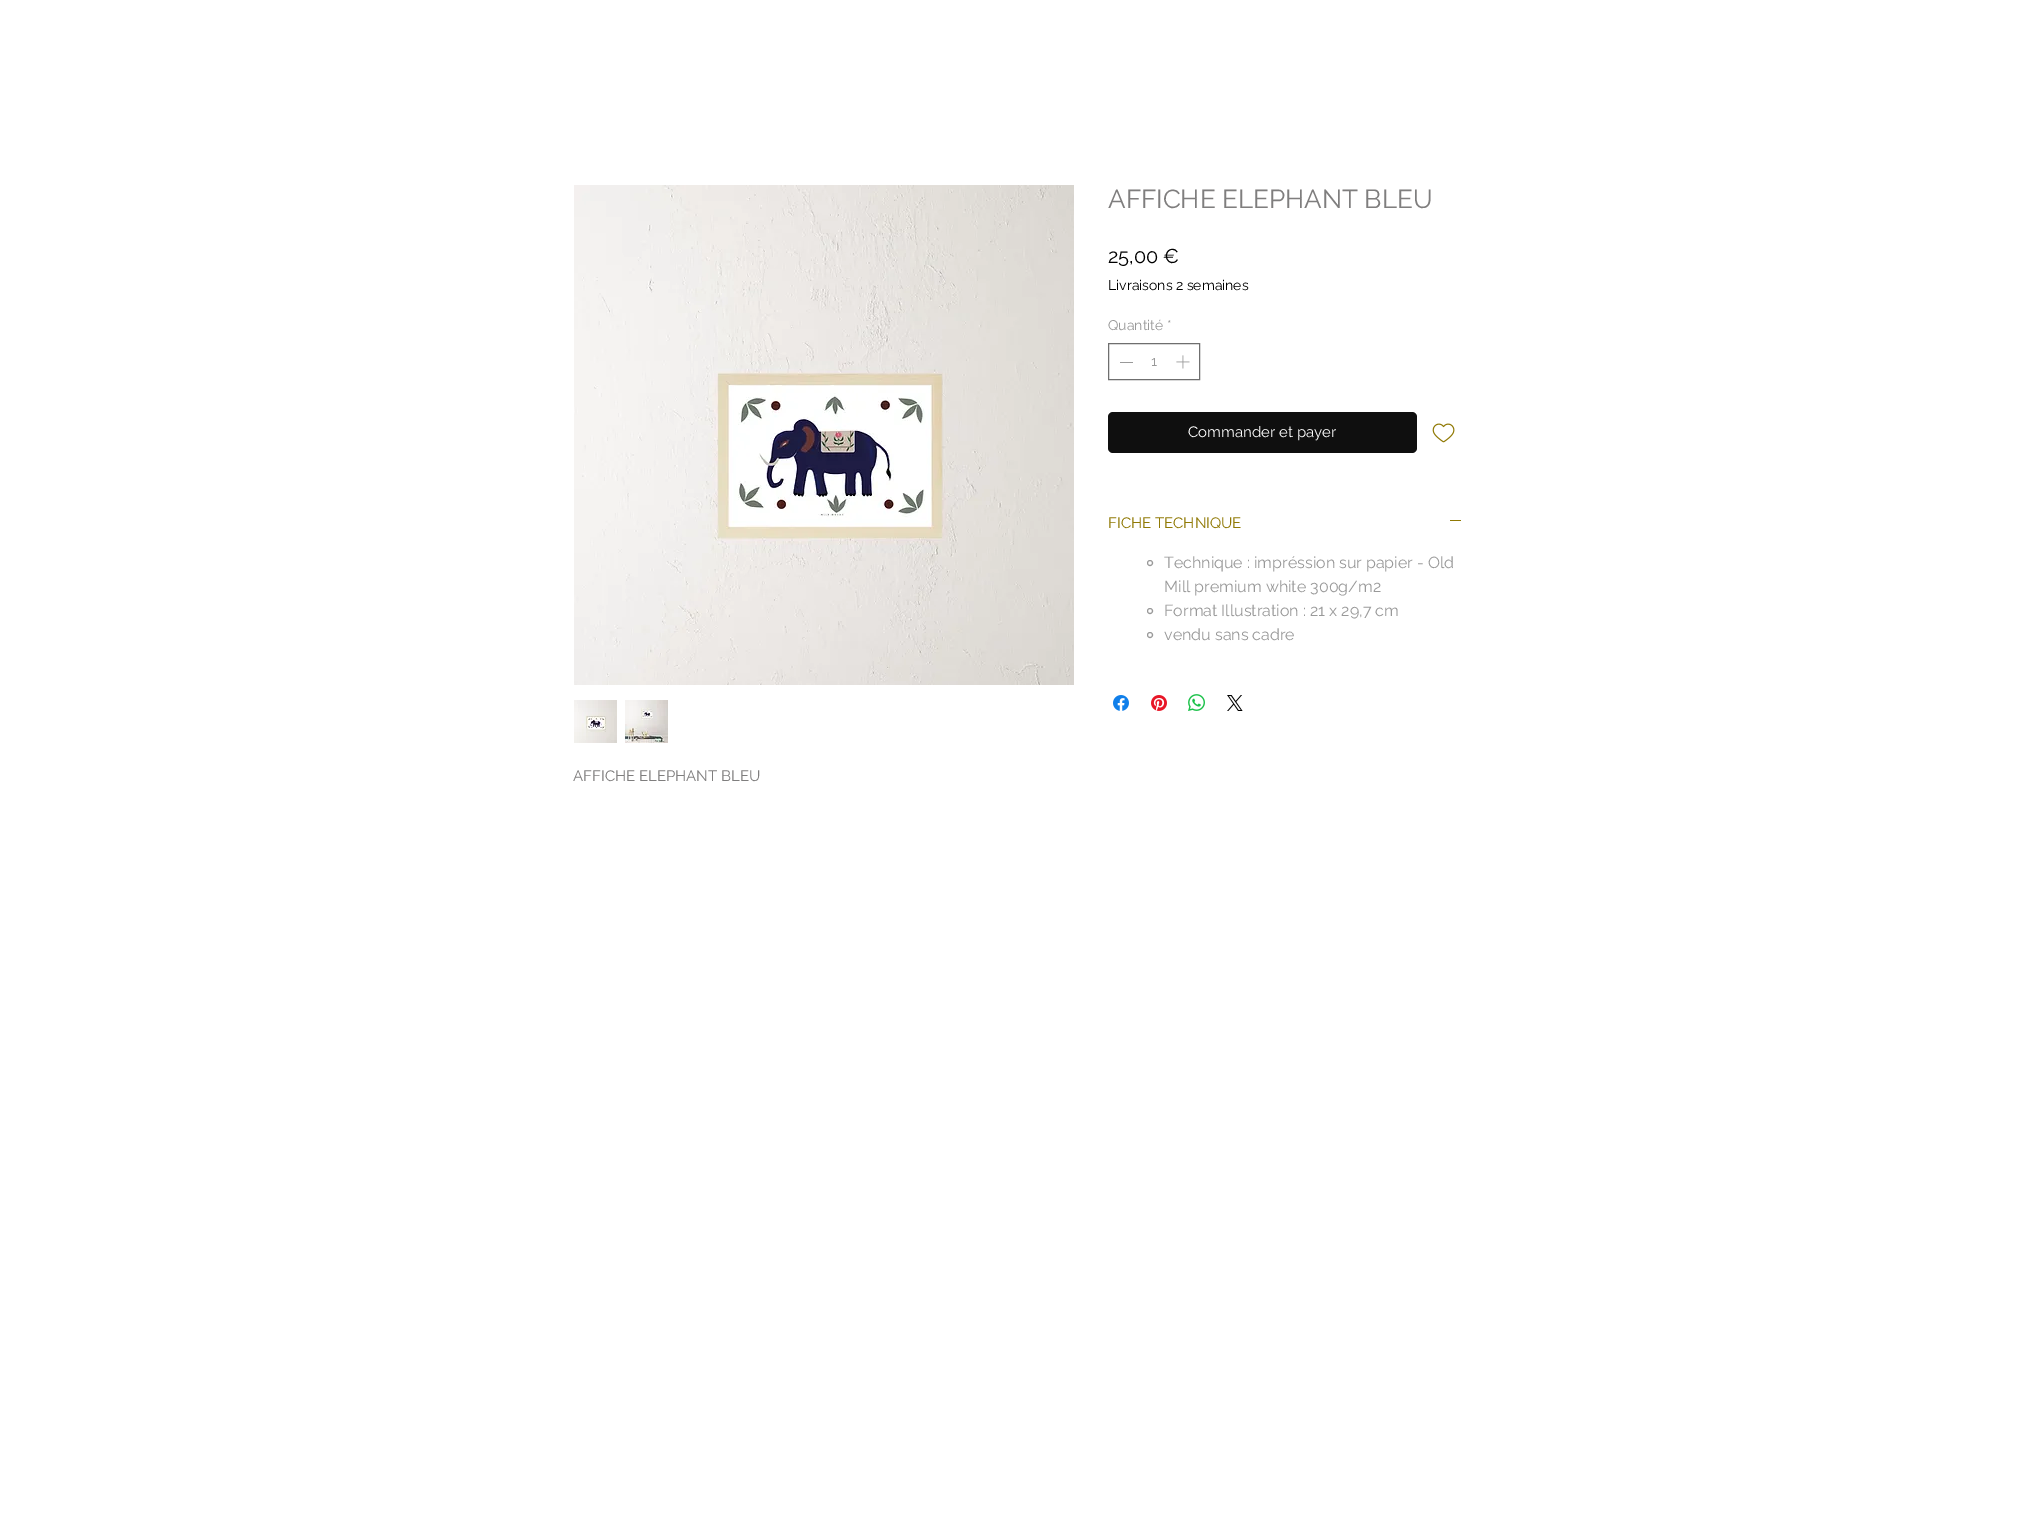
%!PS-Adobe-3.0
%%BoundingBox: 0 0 2036 1535
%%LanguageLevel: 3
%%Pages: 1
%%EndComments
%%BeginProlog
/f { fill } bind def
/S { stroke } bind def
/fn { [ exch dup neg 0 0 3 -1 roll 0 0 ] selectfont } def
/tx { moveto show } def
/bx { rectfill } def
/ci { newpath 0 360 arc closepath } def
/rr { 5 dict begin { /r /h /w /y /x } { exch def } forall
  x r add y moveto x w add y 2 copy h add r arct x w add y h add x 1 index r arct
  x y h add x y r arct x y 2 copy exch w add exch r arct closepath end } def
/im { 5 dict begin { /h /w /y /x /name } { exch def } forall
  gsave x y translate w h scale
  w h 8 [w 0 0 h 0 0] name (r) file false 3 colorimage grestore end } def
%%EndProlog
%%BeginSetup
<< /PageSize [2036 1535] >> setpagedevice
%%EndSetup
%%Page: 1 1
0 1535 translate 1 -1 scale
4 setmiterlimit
1 setgray
0 0 2036 1535 bx
/Raleway-Regular 26 fn
0.498 0.494 0.494 setrgbcolor
(AFFICHE ELEPHANT BLEU) 1108 208 tx
/Raleway-Regular 20 fn
0 setgray
(25,00 €) 1108 263 tx
/Raleway-Regular 14 fn
(Livraisons 2 semaines) 1108 290 tx
0.6 setgray
(Quantité) 1108 330 tx
(*) 1167 330 tx
0.435 setgray
1108.5 343.5 91 36 rectstroke
0.6 setgray
1120 362 13 1 bx
(1) 1151 366 tx
(image0.raw) 1176 355 14 14 im
0.059 setgray
1108 412 309 41 5 rr f
/Raleway-Regular 15 fn
1 setgray
(Commander et payer) 1188 437 tx
(image1.raw) 1432 423 23 20 im
0.565 0.475 0.016 setrgbcolor
(FICHE TECHNIQUE) 1108 528 tx
1450 520 11 1 bx
0.6 setgray
1150 563 2.5 ci S
/Raleway-Regular 16 fn
(Technique : impréssion sur papier - Old) 1164 568 tx
(Mill premium white 300g/m2) 1164 592 tx
1150 611 2.5 ci S
(Format Illustration : 21 x 29,7 cm) 1164 616 tx
1150 635 2.5 ci S
(vendu sans cadre) 1164 640 tx
(image2.raw) 1113 695 16 16 im
(image3.raw) 1151 695 16 16 im
(image4.raw) 1188 694 17 17 im
(image5.raw) 1227 695 16 16 im
(image6.raw) 574 185 500 500 im
(image7.raw) 574 700 43 43 im
(image8.raw) 625 700 43 43 im
/Raleway-Regular 15 fn
0.498 0.494 0.494 setrgbcolor
(AFFICHE ELEPHANT BLEU) 573 781 tx
showpage
%%EOF
